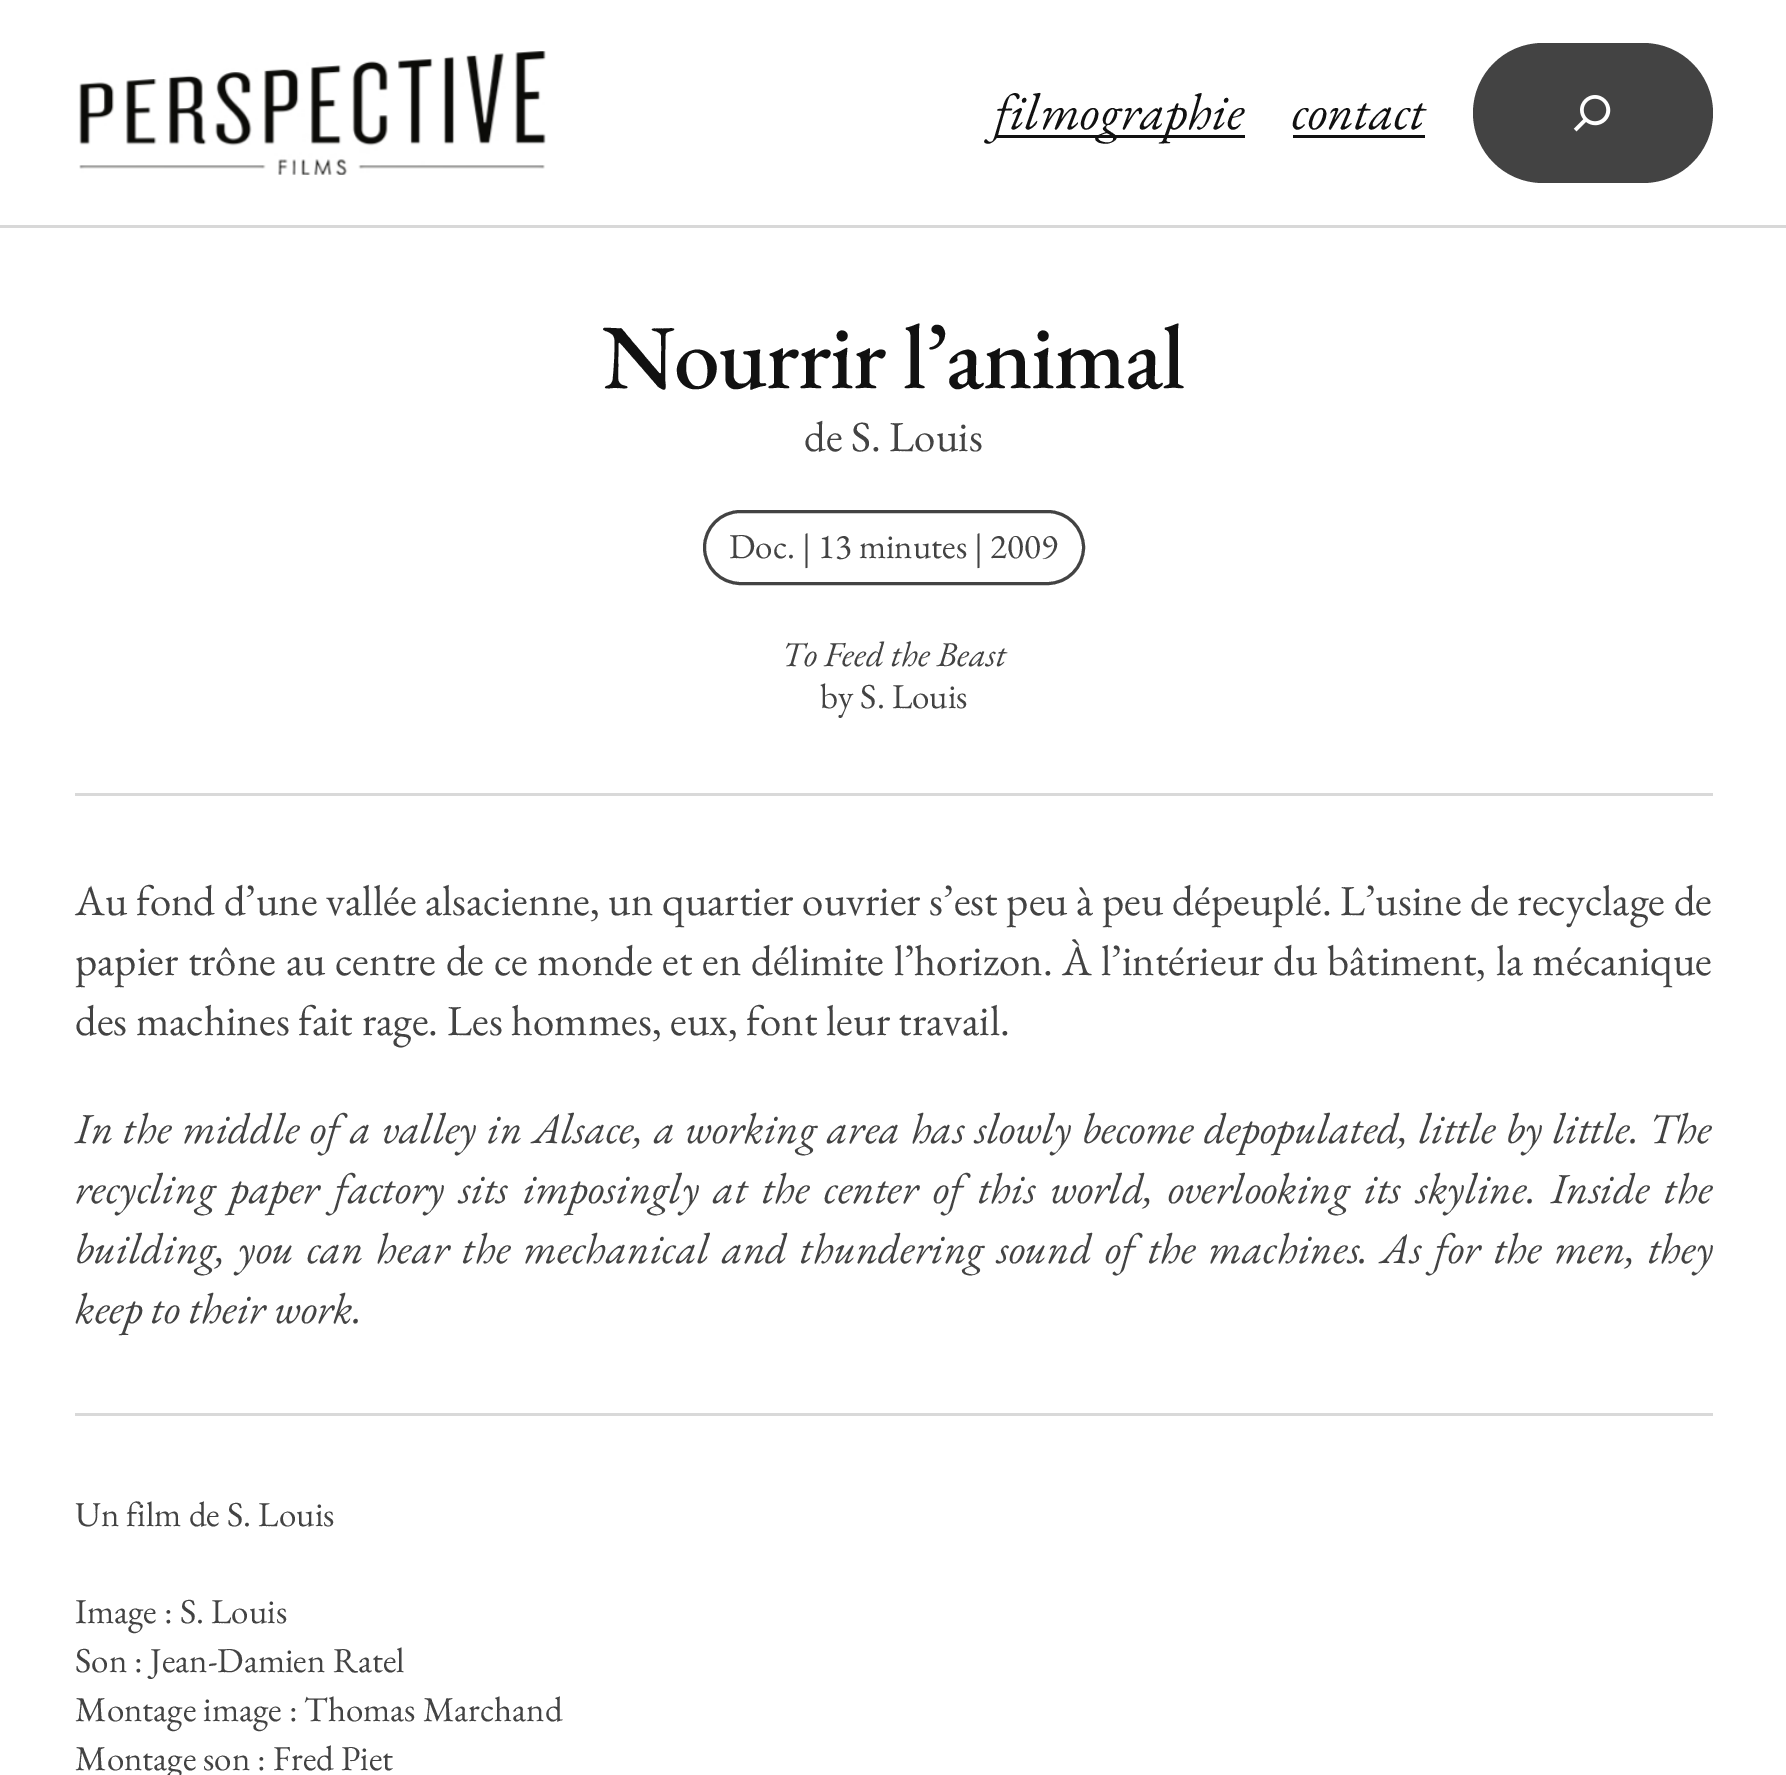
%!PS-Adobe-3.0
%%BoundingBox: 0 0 1786 1775
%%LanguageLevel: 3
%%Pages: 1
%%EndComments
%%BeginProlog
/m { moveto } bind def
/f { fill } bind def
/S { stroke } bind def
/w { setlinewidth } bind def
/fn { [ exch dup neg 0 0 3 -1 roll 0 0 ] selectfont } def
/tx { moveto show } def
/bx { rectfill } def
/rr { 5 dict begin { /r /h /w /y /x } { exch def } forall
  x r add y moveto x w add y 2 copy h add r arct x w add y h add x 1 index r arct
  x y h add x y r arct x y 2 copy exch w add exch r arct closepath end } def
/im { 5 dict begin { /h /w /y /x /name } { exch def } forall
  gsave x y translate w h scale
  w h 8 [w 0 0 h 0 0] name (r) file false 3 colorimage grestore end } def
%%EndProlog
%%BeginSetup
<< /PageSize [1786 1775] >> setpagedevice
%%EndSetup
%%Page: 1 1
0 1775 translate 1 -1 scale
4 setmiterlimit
1 setgray
0 0 1786 1775 bx
0.847 setgray
0 225 1786 3 bx
(image0.raw) 79 51 467 124 im
0.067 setgray
995 135 250 3 bx
/EBGaramond-Italic 51 fn
(filmographie) 994 129 tx
(contact) 1292 129 tx
1293 135 132 3 bx
0.263 setgray
1473 43 240 140 70 rr f
(image1.raw) 1573 95 38 37 im
/EBGaramond-Medium 91.75 fn
0.067 setgray
602 388 m -1.25 0 (Nourrir l’animal) ashow
/EBGaramond-Regular 42.9 fn
0.263 setgray
(de S. Louis) 804 451 tx
3 w
704.5 511.5 379 72 36 rr S
/EBGaramond-Regular 35 fn
(Doc. | 13 minutes | 2009) 729 558 tx
/EBGaramond-Italic 35 fn
(To Feed the Beast) 782 666 tx
/EBGaramond-Regular 35 fn
(by S. Louis) 820 708 tx
0.851 setgray
75 793 1638 3 bx
/EBGaramond-Regular 42.9 fn
0.263 setgray
(Au fond d’une vallée alsacienne, un quartier ouvrier s’est peu à peu dépeuplé. L’usine de recyclage de) 75 915 tx
75 975 m 0.9 0 32 (papier trône au centre de ce monde et en délimite l’horizon. À l’intérieur du bâtiment, la mécanique) widthshow
(des machines fait rage. Les hommes, eux, font leur travail.) 75 1035 tx
/EBGaramond-Italic 42.9 fn
75 1143 m 1.75 0 32 (In the middle of a valley in Alsace, a working area has slowly become depopulated, little by little. The) widthshow
75 1203 m 6 0 32 (recycling paper factory sits imposingly at the center of this world, overlooking its skyline. Inside the) widthshow
75 1263 m 4.25 0 32 (building, you can hear the mechanical and thundering sound of the machines. As for the men, they) widthshow
(keep to their work.) 75 1323 tx
0.851 setgray
75 1413 1638 3 bx
/EBGaramond-Regular 35 fn
0.263 setgray
(Un film de S. Louis) 75 1526 tx
(Image : S. Louis) 75 1623 tx
(Son : Jean-Damien Ratel) 75 1672 tx
(Montage image : Thomas Marchand) 75 1721 tx
(Montage son : Fred Piet) 75 1770 tx
showpage
%%EOF
